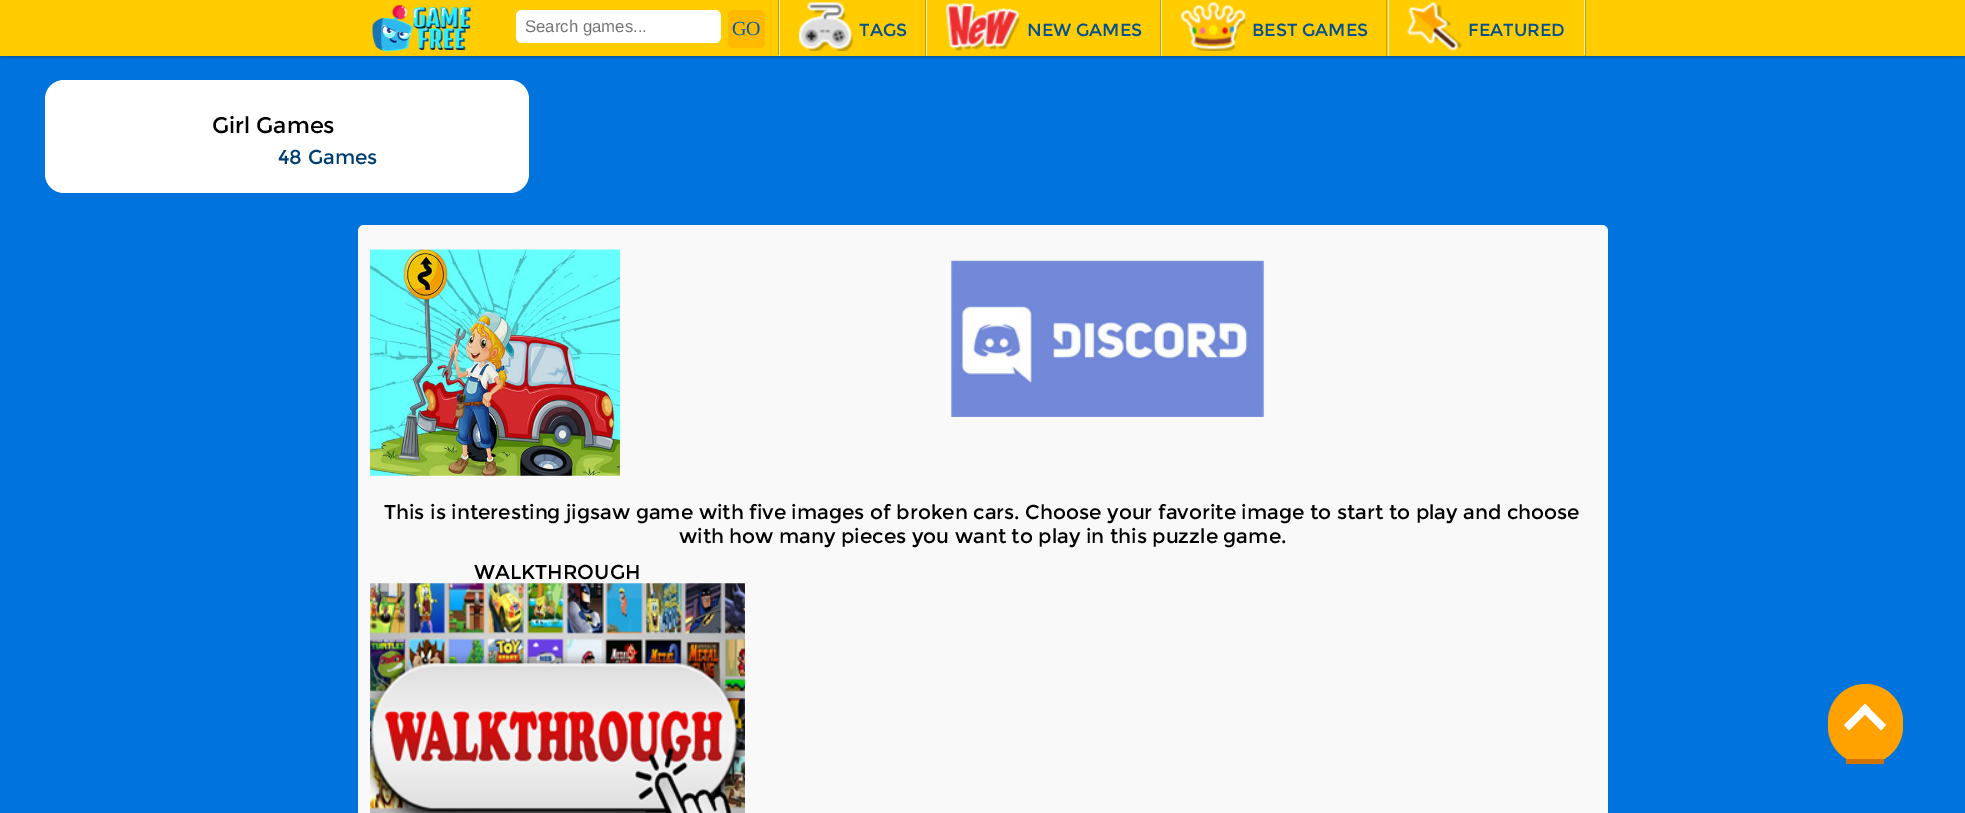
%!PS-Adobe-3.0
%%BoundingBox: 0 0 1965 813
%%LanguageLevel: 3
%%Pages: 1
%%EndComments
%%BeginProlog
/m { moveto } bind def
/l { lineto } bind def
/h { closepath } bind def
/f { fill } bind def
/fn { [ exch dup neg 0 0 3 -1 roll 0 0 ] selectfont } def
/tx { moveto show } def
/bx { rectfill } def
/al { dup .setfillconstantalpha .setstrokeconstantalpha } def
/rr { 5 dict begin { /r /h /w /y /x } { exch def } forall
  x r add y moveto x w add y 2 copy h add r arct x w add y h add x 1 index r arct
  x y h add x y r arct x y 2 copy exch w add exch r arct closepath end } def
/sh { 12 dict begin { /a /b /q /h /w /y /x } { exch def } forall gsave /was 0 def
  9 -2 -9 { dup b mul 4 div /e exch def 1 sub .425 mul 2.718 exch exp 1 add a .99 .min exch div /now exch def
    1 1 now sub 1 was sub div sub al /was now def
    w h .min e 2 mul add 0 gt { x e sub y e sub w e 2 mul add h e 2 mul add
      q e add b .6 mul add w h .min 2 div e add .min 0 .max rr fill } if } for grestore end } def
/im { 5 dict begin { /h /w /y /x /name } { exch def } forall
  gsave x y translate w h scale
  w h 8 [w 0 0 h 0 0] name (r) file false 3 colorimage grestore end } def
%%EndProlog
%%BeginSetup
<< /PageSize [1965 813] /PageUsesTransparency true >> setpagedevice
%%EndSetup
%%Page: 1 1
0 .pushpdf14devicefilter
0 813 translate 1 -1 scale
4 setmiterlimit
0 0.451 0.867 setrgbcolor
0 0 1965 813 bx
0 setgray
0 1 1965 57 0 1 0.2 sh
1 0.8 0 setrgbcolor
0 0 1965 56 bx
(image0.raw) 372 5 99 47 im
0.765 0.616 0.012 setrgbcolor
778 0 1 55 bx
1 setgray
516 10 205 33 6 rr f
/LiberationSans-Regular 16.75 fn
0.459 setgray
(Search games...) 525 32 tx
1 0.729 0 setrgbcolor
728 10 37 38 6 rr f
/LiberationSerif-Regular 20 fn
0.008 0.361 0.682 setrgbcolor
(GO) 732 35 tx
0.765 0.616 0.012 setrgbcolor
925 0 1 56 bx
1 0.949 0.741 setrgbcolor
779 0 1 56 bx
(image1.raw) 799 2 54 49 im
/Montserrat-Regular 17.5 fn
0.012 0.318 0.576 setrgbcolor
(TAGS) 859 36 tx
0.765 0.616 0.012 setrgbcolor
1160 0 1 56 bx
1 0.949 0.741 setrgbcolor
926 0 1 56 bx
(image2.raw) 945 3 75 48 im
0.012 0.318 0.576 setrgbcolor
(NEW GAMES) 1027 36 tx
0.765 0.616 0.012 setrgbcolor
1386 0 1 56 bx
1 0.949 0.741 setrgbcolor
1161 0 1 56 bx
(image3.raw) 1180 2 66 49 im
0.012 0.318 0.576 setrgbcolor
(BEST GAMES) 1252 36 tx
0.765 0.616 0.012 setrgbcolor
1585 0 1 56 bx
1 0.949 0.741 setrgbcolor
1388 0 1 56 bx
1584 0 1 55 bx
(image4.raw) 1406 2 56 49 im
0.012 0.318 0.576 setrgbcolor
(FEATURED) 1468 36 tx
1 setgray
45 80 484 113 19 rr f
/Montserrat-Regular 22.5 fn
0 setgray
(Girl Games) 212 133 tx
/Montserrat-Regular 20 fn
0 0.239 0.443 setrgbcolor
(48 Games) 278 164 tx
0.976 setgray
358 225 1250 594 6 rr f
(image5.raw) 370 249 250 227 im
(image6.raw) 951 260 313 157 im
0 setgray
(This is interesting jigsaw game with five images of broken cars. Choose your favorite image to start to play and choose) 384 519 tx
(with how many pieces you want to play in this puzzle game.) 679 543 tx
(WALKTHROUGH) 474 579 tx
(image7.raw) 370 583 375 230 im
1 0.635 0 setrgbcolor
1828 684 75 80 37.5 rr f
0.816 0.451 0 setrgbcolor
1846 759 38 5 bx
1 setgray
1865 704 m 1886 725 l 1881 730.5 l 1859.5 709 l h f
1865 704 m 1870.5 709 l 1849 730.5 l 1844 725 l h f
.poppdf14devicefilter showpage
%%EOF
